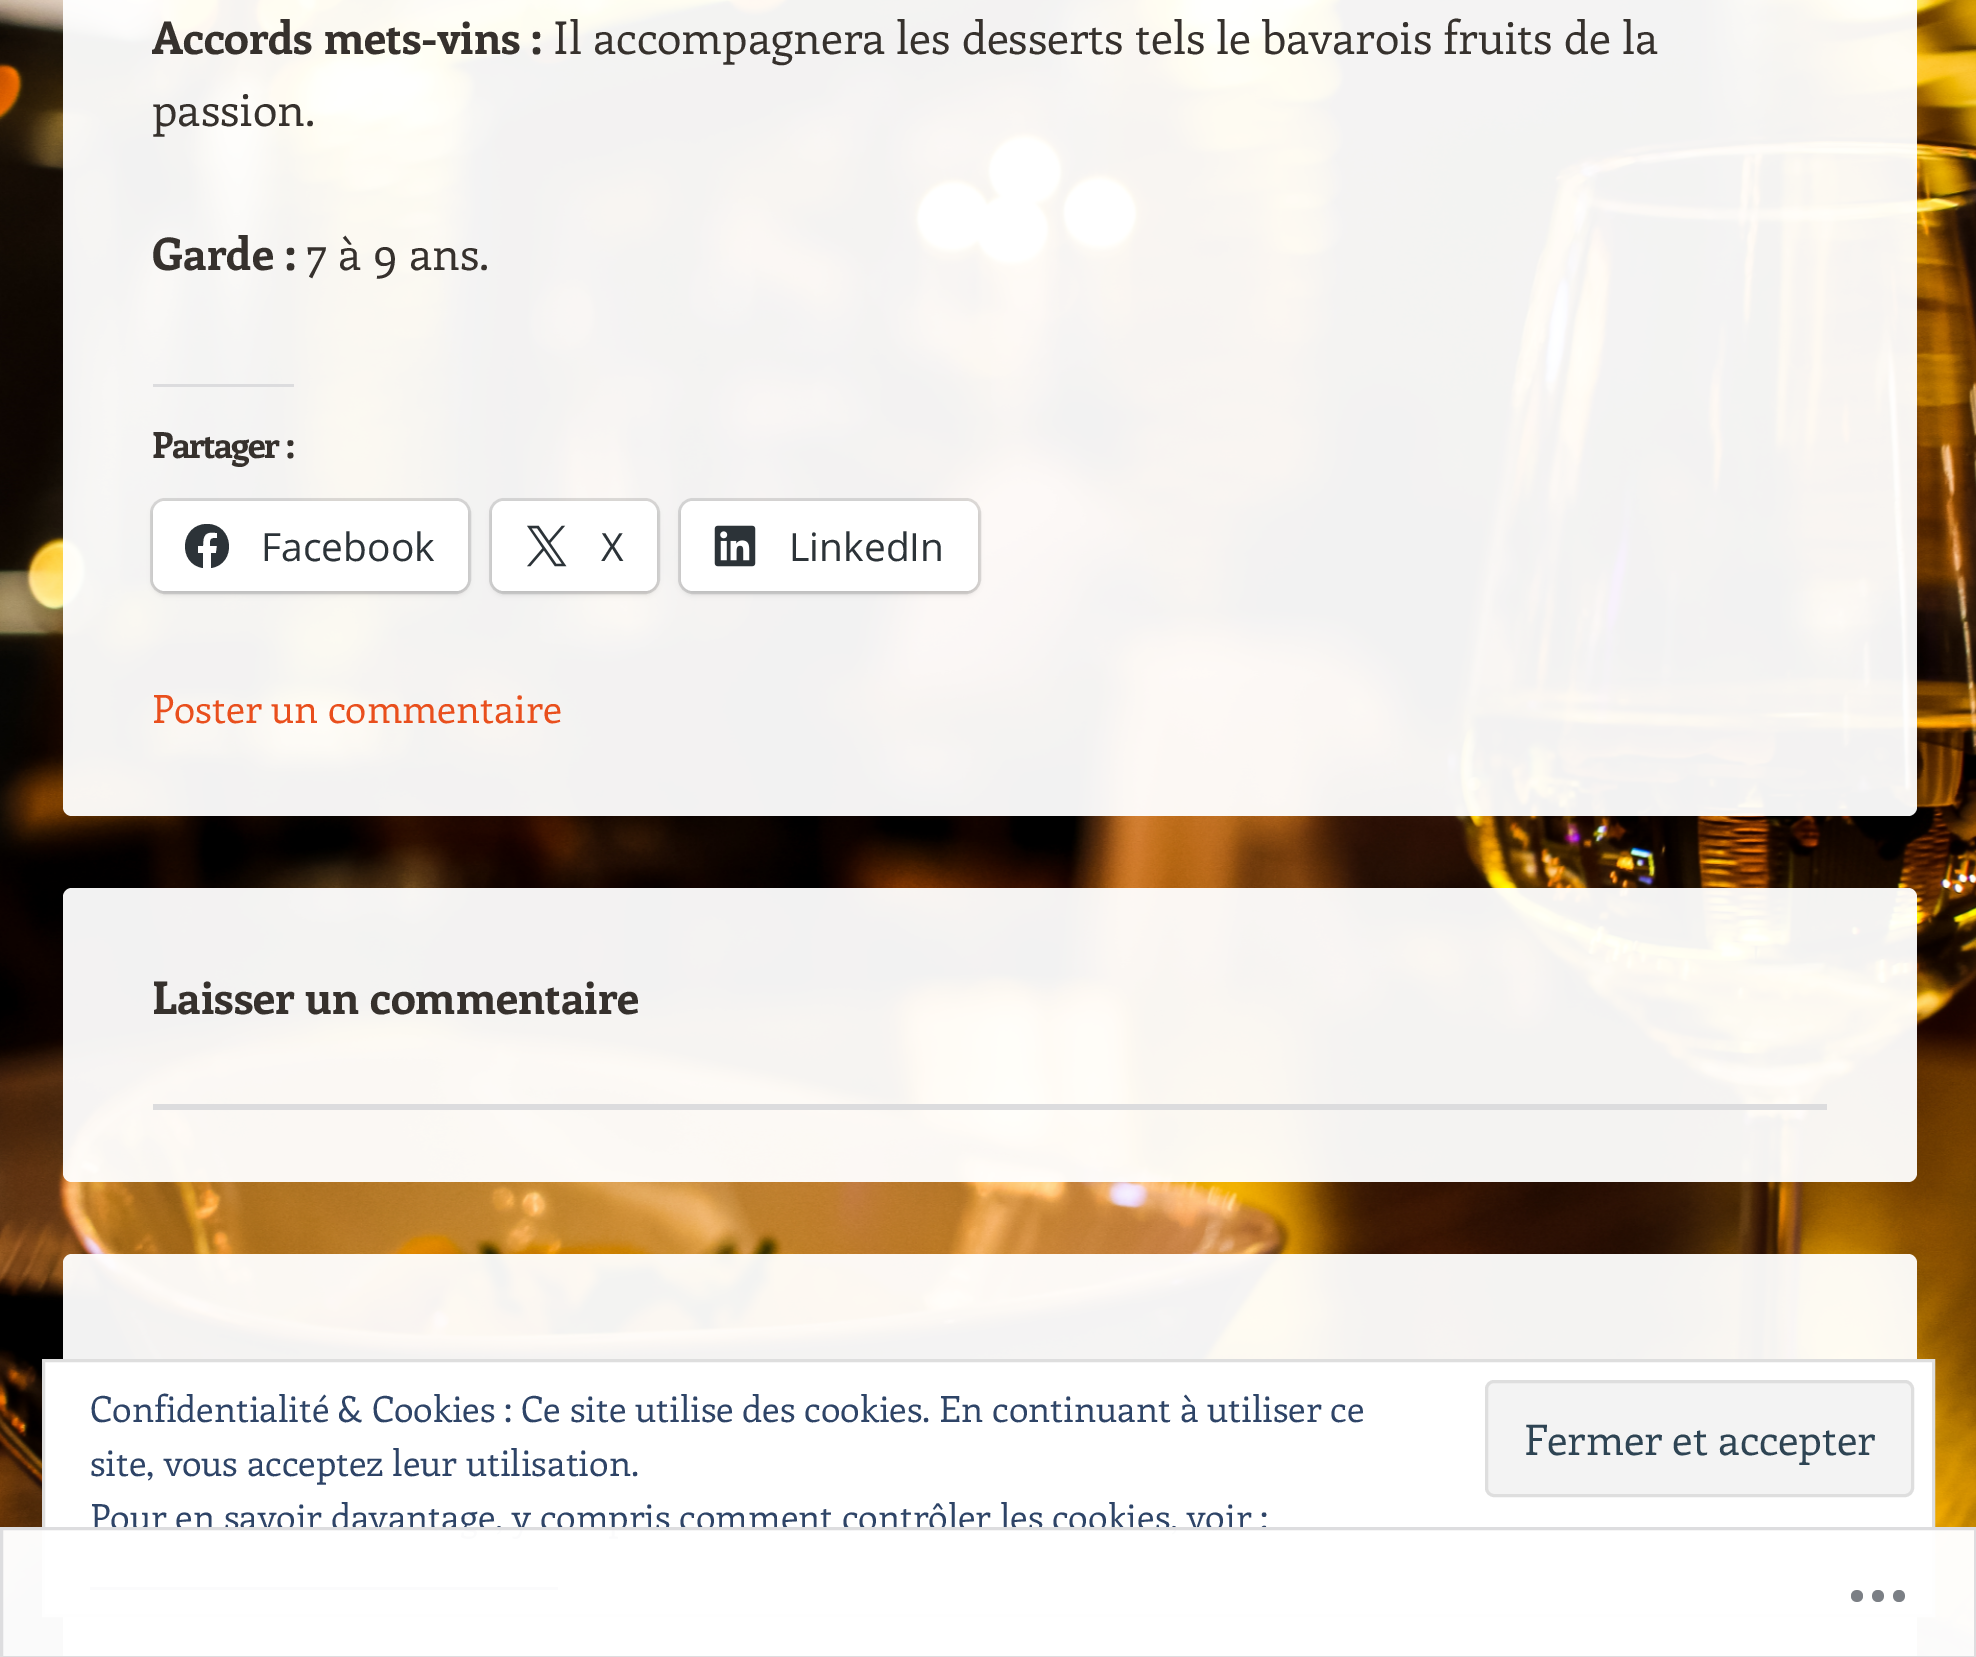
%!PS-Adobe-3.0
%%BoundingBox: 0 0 1976 1657
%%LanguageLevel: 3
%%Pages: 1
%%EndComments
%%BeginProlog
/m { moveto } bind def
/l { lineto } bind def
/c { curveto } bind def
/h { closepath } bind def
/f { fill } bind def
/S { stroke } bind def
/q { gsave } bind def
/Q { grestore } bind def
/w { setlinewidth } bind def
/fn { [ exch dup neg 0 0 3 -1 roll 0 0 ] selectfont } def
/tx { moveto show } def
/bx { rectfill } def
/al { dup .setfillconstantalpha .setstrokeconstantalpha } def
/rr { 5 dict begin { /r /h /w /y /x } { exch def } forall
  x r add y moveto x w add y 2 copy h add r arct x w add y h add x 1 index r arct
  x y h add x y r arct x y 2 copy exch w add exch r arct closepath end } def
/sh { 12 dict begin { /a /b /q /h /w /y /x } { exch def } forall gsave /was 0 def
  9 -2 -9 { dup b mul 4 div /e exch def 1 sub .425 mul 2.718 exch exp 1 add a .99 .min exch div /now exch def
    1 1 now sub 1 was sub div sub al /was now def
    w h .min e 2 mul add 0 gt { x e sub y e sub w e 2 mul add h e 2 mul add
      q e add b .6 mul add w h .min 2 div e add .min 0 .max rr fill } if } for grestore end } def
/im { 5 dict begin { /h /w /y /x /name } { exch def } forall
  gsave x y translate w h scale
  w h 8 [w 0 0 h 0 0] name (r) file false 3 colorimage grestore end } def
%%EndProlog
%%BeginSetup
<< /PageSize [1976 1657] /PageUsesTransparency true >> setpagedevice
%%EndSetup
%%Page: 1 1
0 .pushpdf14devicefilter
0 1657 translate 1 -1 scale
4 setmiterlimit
1 setgray
0 0 1976 1657 bx
(image0.raw) 0 0 1976 1657 im
0.95 al
63 -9 1854 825 9 rr f
/Enriqueta-Bold 45 fn
1 al
0.212 0.192 0.176 setrgbcolor
(Accords mets-vins :) 152 54 tx
/Enriqueta-Regular 45 fn
(Il accompagnera les desserts tels le bavarois fruits de la) 553 54 tx
(passion.) 152 126 tx
/Enriqueta-Bold 45 fn
(Garde :) 152 270 tx
/Enriqueta-Regular 45 fn
(7 à 9 ans.) 306 270 tx
0.863 0.863 0.871 setrgbcolor
153 384 141 3 bx
/Enriqueta-Bold 36 fn
0.212 0.192 0.176 setrgbcolor
152 458 m -1.5 0 (Partager :) ashow
0.12 al
0 setgray
3 w
151.5 499.5 318 93 13.5 rr S
1 al
153 504 315 90 12 3 0.12 sh
1 setgray
153 501 315 90 12 rr f
0.173 0.2 0.22 setrgbcolor
207 524 m 180 524 177 564 203 568 c 203 553 l 198 553 l 198 546 l 203 546 l 203 535 205 531 217 533 c 217 538 l 210 538 210 539 210 546 c 217 546 l 216 553 l 211 553 l 211 568 l 237 564 234 524 207 524 c h f
/OpenSans-Regular 39 fn
(Facebook) 261 561 tx
0.12 al
0 setgray
490.5 499.5 168 93 13.5 rr S
1 al
492 504 165 90 12 3 0.12 sh
1 setgray
492 501 165 90 12 rr f
(image1.raw) 527 525 40 42 im
0.173 0.2 0.22 setrgbcolor
(X) 601 561 tx
0.12 al
0 setgray
679.5 499.5 300 93 13.5 rr S
1 al
681 504 297 90 12 3 0.12 sh
1 setgray
681 501 297 90 12 rr f
(image2.raw) 714 525 42 42 im
0.173 0.2 0.22 setrgbcolor
(LinkedIn) 789 561 tx
/Enriqueta-Regular 39 fn
0.914 0.31 0.114 setrgbcolor
(Poster un commentaire) 152 723 tx
0.95 al
1 setgray
63 888 1854 294 9 rr f
/Enriqueta-Bold 45 fn
1 al
0.212 0.192 0.176 setrgbcolor
(Laisser un commentaire) 152 1014 tx
0.863 0.863 0.871 setrgbcolor
153 1104 1674 6 bx
0.95 al
1 setgray
63 1254 1854 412 9 rr f
1 al
43.5 1360.5 m 1933.5 1360.5 l 1933.5 1615.5 l 43.5 1615.5 l h q f Q
0.871 setgray
S
/Enriqueta-Regular 36 fn
0.18 0.267 0.404 setrgbcolor
(Confidentialité & Cookies : Ce site utilise des cookies. En continuant à utiliser ce) 90 1422 tx
(site, vous acceptez leur utilisation.) 90 1476 tx
0.953 setgray
1486.5 1381.5 426 114 7.5 rr q f Q
0.871 setgray
S
/Enriqueta-Regular 42 fn
0.18 0.267 0.325 setrgbcolor
(Fermer et accepter) 1524 1455 tx
/Enriqueta-Regular 36 fn
0.18 0.267 0.404 setrgbcolor
(Pour en savoir davantage, y compris comment contrôler les cookies, voir :) 90 1530 tx
90 1587 468 3 bx
0.98 al
1 setgray
0 1527 1976 130 bx
0.863 0.863 0.871 setrgbcolor
1.5 1528.5 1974 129 rectstroke
1 al
0.482 0.498 0.522 setrgbcolor
1863 1596 m 1863 1604 1851 1604 1851 1596 c 1851 1588 1863 1588 1863 1596 c h 1899 1590 m 1891 1590 1891 1602 1899 1602 c 1907 1602 1907 1590 1899 1590 c h 1878 1590 m 1870 1590 1870 1602 1878 1602 c 1886 1602 1886 1590 1878 1590 c h f
.poppdf14devicefilter showpage
%%EOF
